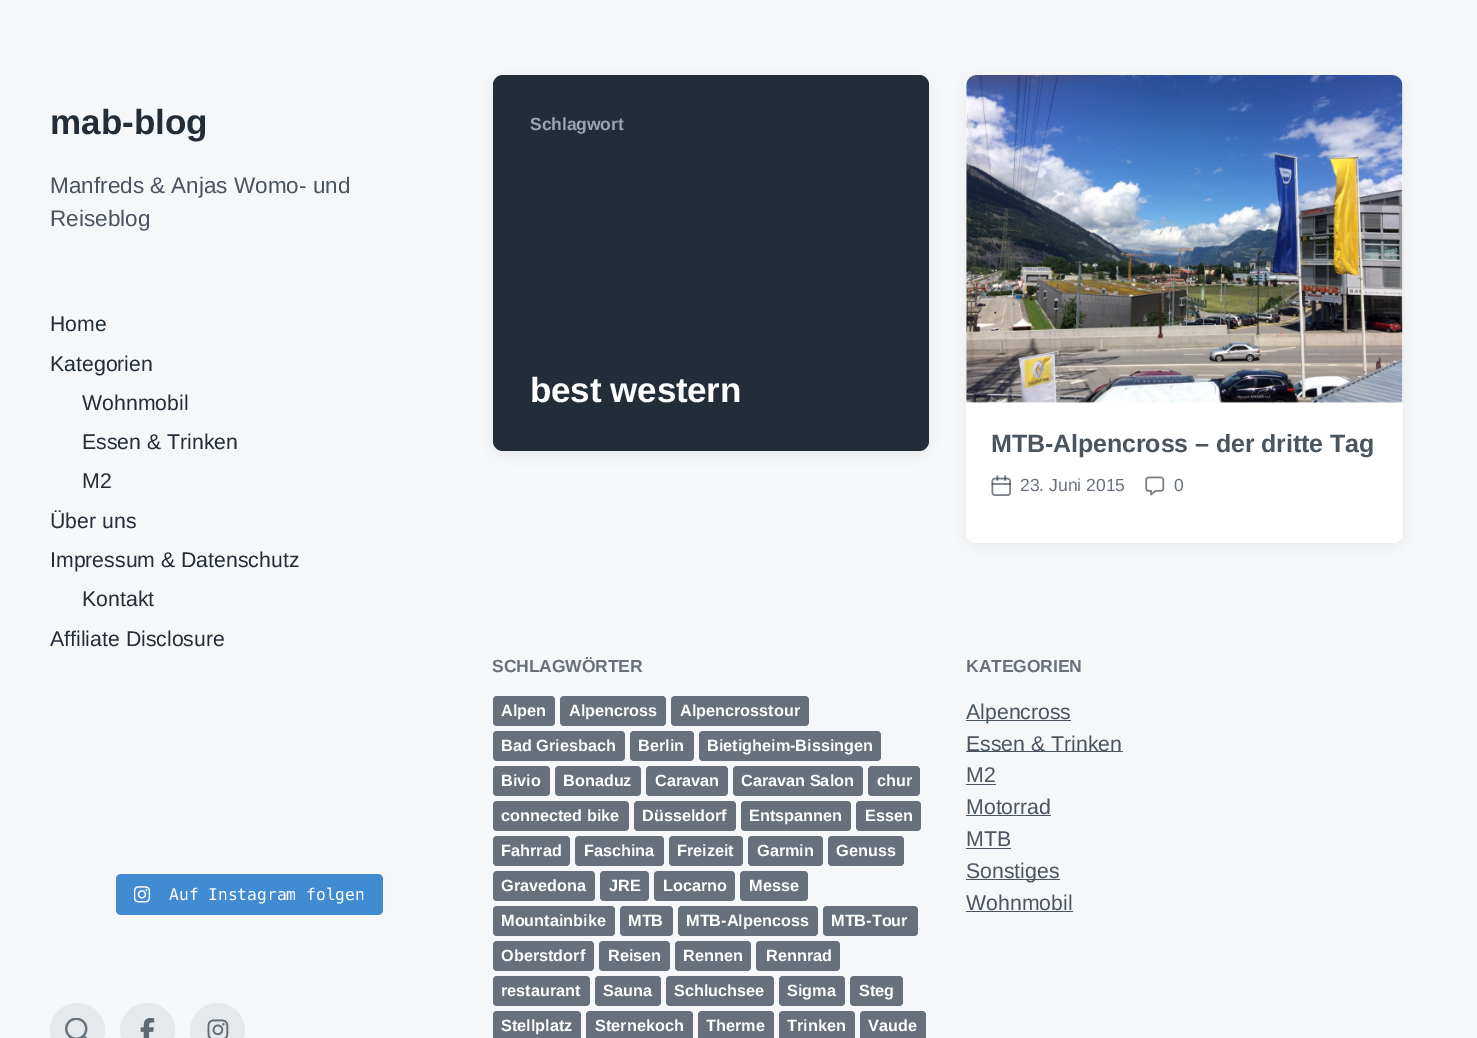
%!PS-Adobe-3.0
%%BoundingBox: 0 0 1477 1038
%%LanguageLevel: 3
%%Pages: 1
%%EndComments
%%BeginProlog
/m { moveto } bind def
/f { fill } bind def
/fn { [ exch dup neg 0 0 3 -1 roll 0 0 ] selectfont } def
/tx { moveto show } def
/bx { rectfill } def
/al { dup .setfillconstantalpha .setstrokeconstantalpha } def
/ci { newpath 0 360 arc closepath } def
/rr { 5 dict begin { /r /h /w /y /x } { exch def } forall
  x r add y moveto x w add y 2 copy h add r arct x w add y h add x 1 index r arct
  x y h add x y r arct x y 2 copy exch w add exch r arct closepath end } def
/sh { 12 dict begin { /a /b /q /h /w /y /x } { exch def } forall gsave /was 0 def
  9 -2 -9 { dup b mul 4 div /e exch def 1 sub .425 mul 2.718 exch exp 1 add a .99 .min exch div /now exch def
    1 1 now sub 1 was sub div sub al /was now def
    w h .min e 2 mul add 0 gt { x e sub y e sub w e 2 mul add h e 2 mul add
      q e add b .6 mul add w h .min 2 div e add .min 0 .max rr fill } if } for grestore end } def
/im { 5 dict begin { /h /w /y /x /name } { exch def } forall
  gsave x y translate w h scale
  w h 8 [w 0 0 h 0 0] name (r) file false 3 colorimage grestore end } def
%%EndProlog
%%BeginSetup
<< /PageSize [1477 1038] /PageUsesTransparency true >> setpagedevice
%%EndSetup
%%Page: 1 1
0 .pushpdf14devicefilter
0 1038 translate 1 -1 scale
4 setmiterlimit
0.965 0.969 0.973 setrgbcolor
0 0 1477 1038 bx
/LiberationSans-Bold 35 fn
0.137 0.176 0.216 setrgbcolor
(mab-blog) 50 134 tx
/LiberationSans-Regular 22.5 fn
0.294 0.333 0.373 setrgbcolor
(Manfreds & Anjas Womo- und) 50 193 tx
(Reiseblog) 50 226 tx
/LiberationSans-Regular 21.25 fn
0.137 0.176 0.216 setrgbcolor
(Home) 50 331 tx
(Kategorien) 50 371 tx
(Wohnmobil) 82 410 tx
(Essen & Trinken) 82 449 tx
(M2) 82 488 tx
(Über uns) 50 528 tx
(Impressum & Datenschutz) 50 567 tx
(Kontakt) 82 606 tx
(Affiliate Disclosure) 50 646 tx
0.251 0.545 0.82 setrgbcolor
116 874 267 41 5 rr f
(image0.raw) 134 886 16 17 im
/DejaVuSansMono-Regular 16.25 fn
1 setgray
(Auf Instagram folgen) 169 900 tx
0.902 0.914 0.925 setrgbcolor
77.5 1030.5 27.5 ci f
(image1.raw) 65 1018 23 20 im
147.5 1030.5 27.5 ci f
(image2.raw) 140 1018 15 20 im
217.5 1030.5 27.5 ci f
(image3.raw) 207 1019 22 19 im
0.02 0.039 0.059 setrgbcolor
493 79 436 376 10 7.5 0.05 sh
0.137 0.176 0.216 setrgbcolor
493 75 436 376 10 rr f
/LiberationSans-Bold 17.5 fn
0.608 0.647 0.686 setrgbcolor
530 130 m -0.1 0 (Schlagwort) ashow
/LiberationSans-Bold 35 fn
1 setgray
530 402 m -0.25 0 (best western) ashow
0.02 0.039 0.059 setrgbcolor
966 79 437 467 10 7.5 0.05 sh
1 setgray
966 75 437 468 10 rr f
(image4.raw) 966 75 437 328 im
/LiberationSans-Bold 25 fn
0.294 0.333 0.373 setrgbcolor
991 452 m -0.1 0 (MTB-Alpencross – der dritte Tag) ashow
(image5.raw) 991 475 20 21 im
/LiberationSans-Regular 17.5 fn
0.408 0.443 0.482 setrgbcolor
(23. Juni 2015) 1020 491 tx
(image6.raw) 1145 476 20 20 im
(0) 1174 491 tx
/LiberationSans-Bold 17.5 fn
492 672 m -0.1 0 (SCHLAGWÖRTER) ashow
493 696 62 30 4 rr f
/LiberationSans-Bold 16.25 fn
1 setgray
(Alpen) 501 716 tx
0.408 0.443 0.482 setrgbcolor
560 696 106 30 4 rr f
1 setgray
(Alpencross) 569 716 tx
0.408 0.443 0.482 setrgbcolor
671 696 138 30 4 rr f
1 setgray
(Alpencrosstour) 680 716 tx
0.408 0.443 0.482 setrgbcolor
493 731 132 30 4 rr f
1 setgray
(Bad Griesbach) 501 751 tx
0.408 0.443 0.482 setrgbcolor
630 731 64 30 4 rr f
1 setgray
(Berlin) 638 751 tx
0.408 0.443 0.482 setrgbcolor
699 731 182 30 4 rr f
1 setgray
(Bietigheim-Bissingen) 707 751 tx
0.408 0.443 0.482 setrgbcolor
493 766 57 30 4 rr f
1 setgray
(Bivio) 501 786 tx
0.408 0.443 0.482 setrgbcolor
555 766 86 30 4 rr f
1 setgray
(Bonaduz) 563 786 tx
0.408 0.443 0.482 setrgbcolor
646 766 82 30 4 rr f
1 setgray
(Caravan) 655 786 tx
0.408 0.443 0.482 setrgbcolor
733 766 130 30 4 rr f
1 setgray
(Caravan Salon) 741 786 tx
0.408 0.443 0.482 setrgbcolor
868 766 52 30 4 rr f
1 setgray
(chur) 877 786 tx
0.408 0.443 0.482 setrgbcolor
493 801 136 30 4 rr f
1 setgray
(connected bike) 501 821 tx
0.408 0.443 0.482 setrgbcolor
634 801 102 30 4 rr f
1 setgray
(Düsseldorf) 642 821 tx
0.408 0.443 0.482 setrgbcolor
741 801 110 30 4 rr f
1 setgray
(Entspannen) 749 821 tx
0.408 0.443 0.482 setrgbcolor
856 801 65 30 4 rr f
1 setgray
(Essen) 865 821 tx
0.408 0.443 0.482 setrgbcolor
493 836 77 30 4 rr f
1 setgray
(Fahrrad) 501 856 tx
0.408 0.443 0.482 setrgbcolor
575 836 89 30 4 rr f
1 setgray
(Faschina) 584 856 tx
0.408 0.443 0.482 setrgbcolor
669 836 74 30 4 rr f
1 setgray
(Freizeit) 677 856 tx
0.408 0.443 0.482 setrgbcolor
748 836 75 30 4 rr f
1 setgray
(Garmin) 757 856 tx
0.408 0.443 0.482 setrgbcolor
828 836 76 30 4 rr f
1 setgray
(Genuss) 836 856 tx
0.408 0.443 0.482 setrgbcolor
493 871 102 30 4 rr f
1 setgray
(Gravedona) 501 891 tx
0.408 0.443 0.482 setrgbcolor
600 871 49 30 4 rr f
1 setgray
(JRE) 609 891 tx
0.408 0.443 0.482 setrgbcolor
654 871 81 30 4 rr f
1 setgray
(Locarno) 663 891 tx
0.408 0.443 0.482 setrgbcolor
740 871 68 30 4 rr f
1 setgray
(Messe) 749 891 tx
0.408 0.443 0.482 setrgbcolor
493 906 122 30 4 rr f
1 setgray
(Mountainbike) 501 926 tx
0.408 0.443 0.482 setrgbcolor
620 906 53 30 4 rr f
1 setgray
(MTB) 628 926 tx
0.408 0.443 0.482 setrgbcolor
678 906 140 30 4 rr f
1 setgray
(MTB-Alpencoss) 686 926 tx
0.408 0.443 0.482 setrgbcolor
823 906 95 30 4 rr f
1 setgray
(MTB-Tour) 831 926 tx
0.408 0.443 0.482 setrgbcolor
493 941 101 30 4 rr f
1 setgray
(Oberstdorf) 501 961 tx
0.408 0.443 0.482 setrgbcolor
599 941 71 30 4 rr f
1 setgray
(Reisen) 608 961 tx
0.408 0.443 0.482 setrgbcolor
675 941 76 30 4 rr f
1 setgray
(Rennen) 683 961 tx
0.408 0.443 0.482 setrgbcolor
756 941 84 30 4 rr f
1 setgray
(Rennrad) 766 961 tx
0.408 0.443 0.482 setrgbcolor
493 976 97 30 4 rr f
1 setgray
(restaurant) 501 996 tx
0.408 0.443 0.482 setrgbcolor
595 976 66 30 4 rr f
1 setgray
(Sauna) 603 996 tx
0.408 0.443 0.482 setrgbcolor
666 976 108 30 4 rr f
1 setgray
(Schluchsee) 674 996 tx
0.408 0.443 0.482 setrgbcolor
779 976 66 30 4 rr f
1 setgray
(Sigma) 787 996 tx
0.408 0.443 0.482 setrgbcolor
850 976 53 30 4 rr f
1 setgray
(Steg) 859 996 tx
0.408 0.443 0.482 setrgbcolor
493 1011 88 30 4 rr f
1 setgray
(Stellplatz) 501 1031 tx
0.408 0.443 0.482 setrgbcolor
586 1011 107 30 4 rr f
1 setgray
(Sternekoch) 595 1031 tx
0.408 0.443 0.482 setrgbcolor
698 1011 76 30 4 rr f
1 setgray
(Therme) 706 1031 tx
0.408 0.443 0.482 setrgbcolor
779 1011 76 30 4 rr f
1 setgray
(Trinken) 787 1031 tx
0.408 0.443 0.482 setrgbcolor
860 1011 66 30 4 rr f
1 setgray
(Vaude) 868 1031 tx
/LiberationSans-Bold 17.5 fn
0.408 0.443 0.482 setrgbcolor
966 672 m -0.1 0 (KATEGORIEN) ashow
0.294 0.333 0.373 setrgbcolor
966 720 105 1 bx
/LiberationSans-Regular 21.25 fn
(Alpencross) 966 719 tx
966 751 157 1 bx
(Essen & Trinken) 966 751 tx
(M2) 966 782 tx
966 784 30 1 bx
(Motorrad) 966 814 tx
966 815 85 1 bx
(MTB) 966 846 tx
966 848 45 1 bx
966 879 94 1 bx
(Sonstiges) 966 878 tx
(Wohnmobil) 966 910 tx
966 911 107 1 bx
.poppdf14devicefilter showpage
%%EOF
